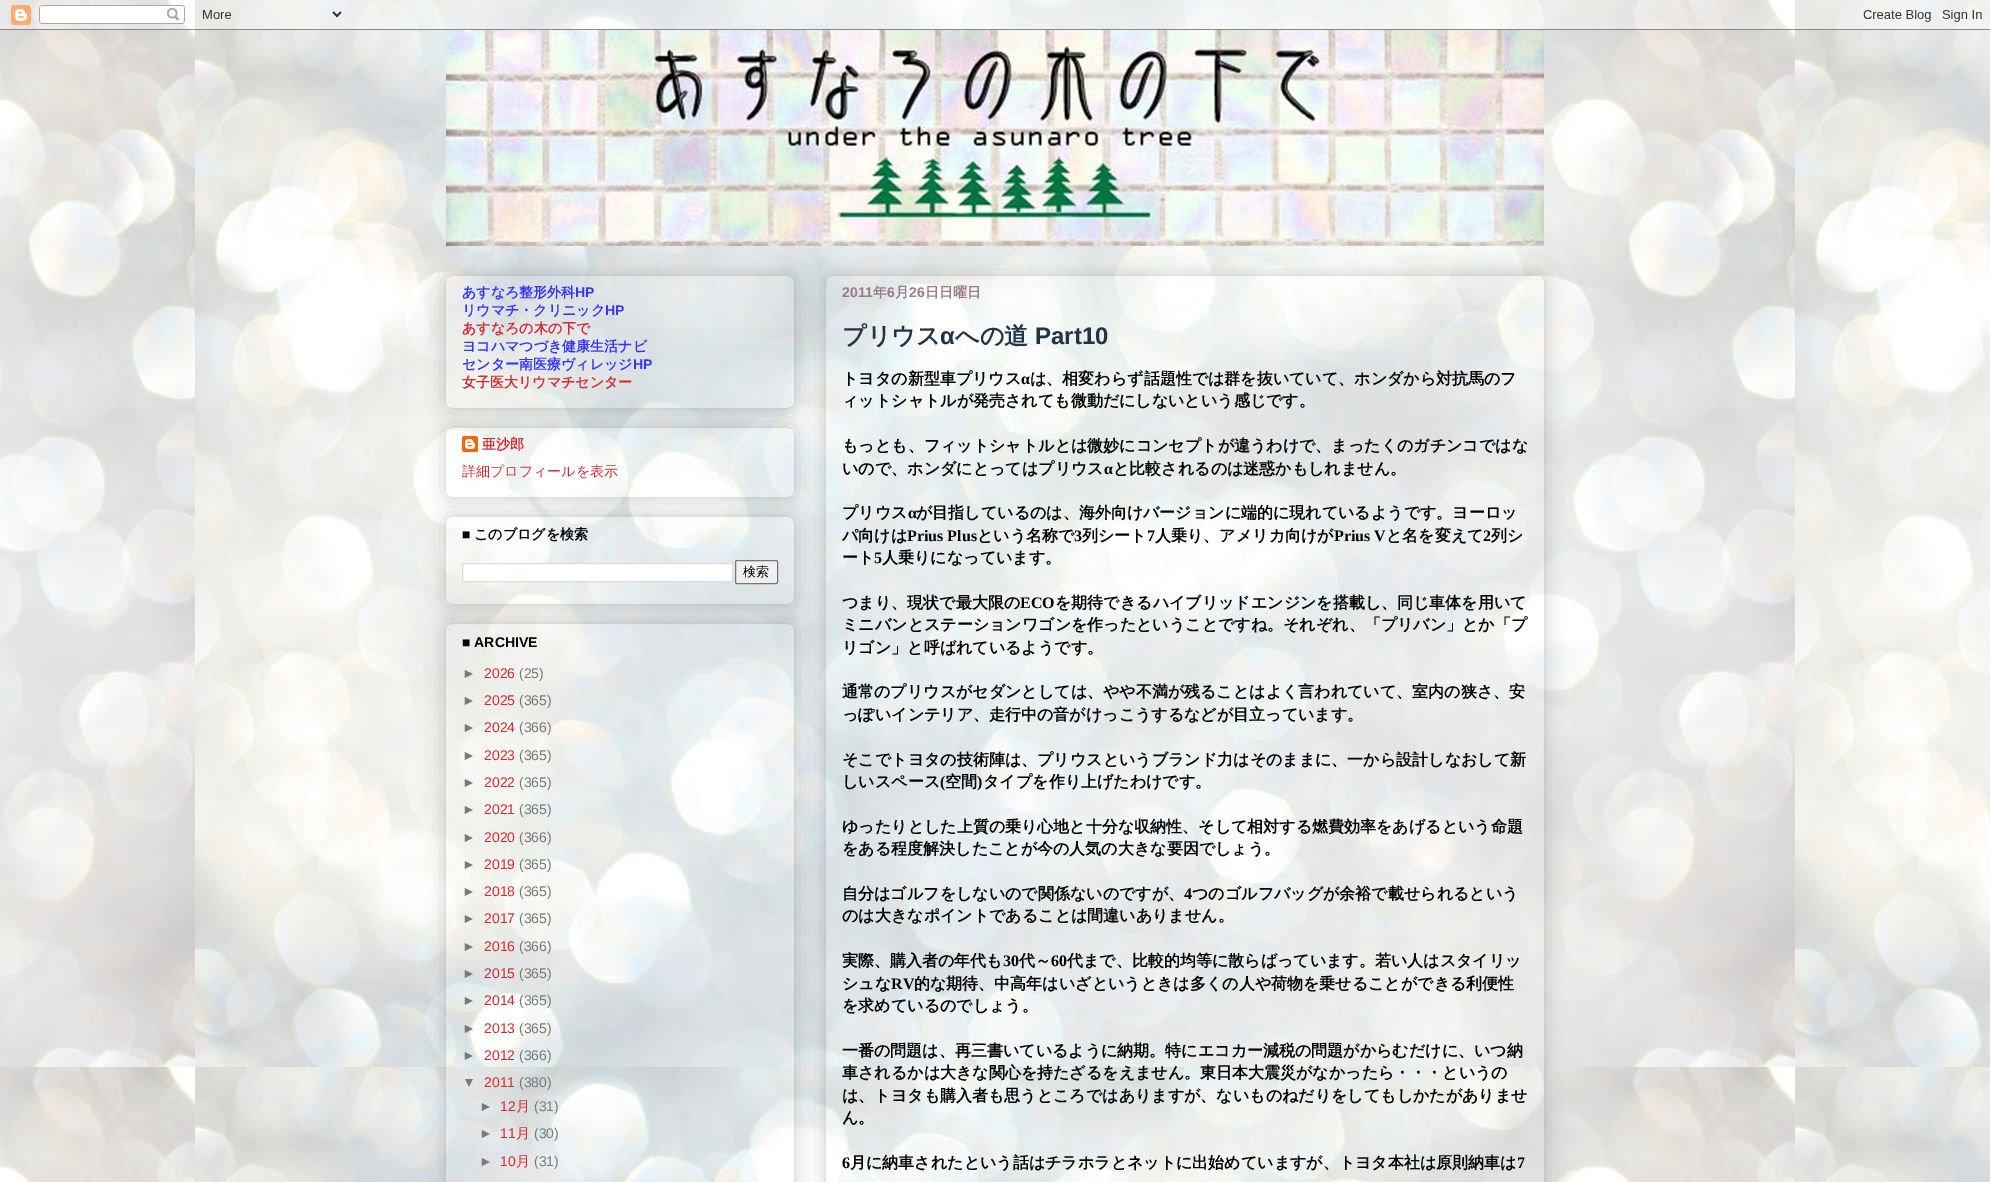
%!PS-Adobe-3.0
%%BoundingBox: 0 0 1990 1182
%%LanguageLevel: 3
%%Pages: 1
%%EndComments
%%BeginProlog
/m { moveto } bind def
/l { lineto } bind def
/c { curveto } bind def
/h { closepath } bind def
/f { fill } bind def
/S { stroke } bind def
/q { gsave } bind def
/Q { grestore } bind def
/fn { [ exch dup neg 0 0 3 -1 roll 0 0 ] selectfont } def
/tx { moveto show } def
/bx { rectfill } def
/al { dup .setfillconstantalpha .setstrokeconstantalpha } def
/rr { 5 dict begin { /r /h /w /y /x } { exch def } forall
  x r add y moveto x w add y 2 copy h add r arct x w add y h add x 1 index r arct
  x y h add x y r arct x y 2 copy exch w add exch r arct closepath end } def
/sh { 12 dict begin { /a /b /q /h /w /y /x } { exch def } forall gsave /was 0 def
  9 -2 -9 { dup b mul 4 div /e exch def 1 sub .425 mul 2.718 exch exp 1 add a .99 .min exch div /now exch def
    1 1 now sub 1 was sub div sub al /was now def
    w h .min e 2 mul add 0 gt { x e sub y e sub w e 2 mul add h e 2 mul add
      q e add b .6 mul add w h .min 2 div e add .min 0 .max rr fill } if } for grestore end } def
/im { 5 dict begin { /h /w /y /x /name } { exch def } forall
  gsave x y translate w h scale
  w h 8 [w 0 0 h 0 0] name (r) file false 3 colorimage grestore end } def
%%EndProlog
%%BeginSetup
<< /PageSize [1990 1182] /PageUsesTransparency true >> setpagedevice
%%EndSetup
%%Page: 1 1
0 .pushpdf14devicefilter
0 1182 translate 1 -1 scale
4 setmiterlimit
1 setgray
0 0 1990 1182 bx
(image0.raw) 0 0 1990 1182 im
(image1.raw) 0 0 1990 30 im
(image2.raw) 446 30 1098 216 im
q
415 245 m 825 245 l 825 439 l 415 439 l h 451 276 m 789 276 l 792 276 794 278 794 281 c 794 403 l 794 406 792 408 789 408 c 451 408 l 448 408 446 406 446 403 c 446 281 l 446 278 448 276 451 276 c h eoclip newpath
0 setgray
446 276 348 132 5 10 0.2 sh
Q
/WenQuanYiZenHei-Bold 14 fn
0.2 0.2 1 setrgbcolor
(あすなろ整形外科) 462 297 tx
/LiberationSans-Bold 14 fn
(HP) 575 297 tx
/WenQuanYiZenHei-Bold 14 fn
(リウマチ・クリニック) 462 315 tx
/LiberationSans-Bold 14 fn
(HP) 605 315 tx
/WenQuanYiZenHei-Bold 14 fn
0.835 0.165 0.2 setrgbcolor
(あすなろの木の下で) 462 333 tx
0.2 0.2 1 setrgbcolor
(ヨコハマつづき健康生活ナビ) 462 351 tx
(センター南医療ヴィレッジ) 462 369 tx
/LiberationSans-Bold 14 fn
(HP) 633 369 tx
/WenQuanYiZenHei-Bold 14 fn
0.835 0.165 0.2 setrgbcolor
(女子医大リウマチセンター) 462 387 tx
q
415 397 m 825 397 l 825 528 l 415 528 l h 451 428 m 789 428 l 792 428 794 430 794 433 c 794 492 l 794 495 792 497 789 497 c 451 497 l 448 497 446 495 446 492 c 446 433 l 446 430 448 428 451 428 c h eoclip newpath
0 setgray
446 428 348 69 5 10 0.2 sh
Q
(image3.raw) 462 436 16 16 im
(亜沙郎) 482 449 tx
/WenQuanYiZenHei-Medium 14 fn
(詳細プロフィールを表示) 462 476 tx
q
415 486 m 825 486 l 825 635 l 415 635 l h 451 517 m 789 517 l 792 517 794 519 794 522 c 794 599 l 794 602 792 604 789 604 c 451 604 l 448 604 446 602 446 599 c 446 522 l 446 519 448 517 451 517 c h eoclip newpath
0 setgray
446 517 348 87 5 10 0.2 sh
Q
/LiberationSans-Bold 14 fn
0 setgray
(■) 462 539 tx
/WenQuanYiZenHei-Bold 14 fn
(このブログを検索) 474 539 tx
1 setgray
462.5 563.5 m 732.5 563.5 l 732.5 581.5 l 462.5 581.5 l h q f Q
0.867 setgray
S
0.937 setgray
735.5 560.5 42 23 1.5 rr q f Q
0.463 setgray
S
/WenQuanYiZenHei-Medium 13 fn
0 setgray
(検索) 743 576 tx
q
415 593 m 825 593 l 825 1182 l 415 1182 l h 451 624 m 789 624 l 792 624 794 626 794 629 c 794 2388 l 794 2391 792 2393 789 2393 c 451 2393 l 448 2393 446 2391 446 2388 c 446 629 l 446 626 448 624 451 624 c h eoclip newpath
446 624 348 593 5 10 0.2 sh
Q
/LiberationSans-Bold 14 fn
(■ ARCHIVE) 462 647 tx
/LiberationSans-Regular 14 fn
0.475 setgray
(►) 462 678 tx
0.835 0.165 0.2 setrgbcolor
(2026) 484 678 tx
0.475 setgray
(\(25\)) 519 678 tx
(►) 462 705 tx
0.835 0.165 0.2 setrgbcolor
(2025) 484 705 tx
0.475 setgray
(\(365\)) 519 705 tx
(►) 462 732 tx
0.835 0.165 0.2 setrgbcolor
(2024) 484 732 tx
0.475 setgray
(\(366\)) 519 732 tx
(►) 462 760 tx
0.835 0.165 0.2 setrgbcolor
(2023) 484 760 tx
0.475 setgray
(\(365\)) 519 760 tx
(►) 462 787 tx
0.835 0.165 0.2 setrgbcolor
(2022) 484 787 tx
0.475 setgray
(\(365\)) 519 787 tx
(►) 462 814 tx
0.835 0.165 0.2 setrgbcolor
(2021) 484 814 tx
0.475 setgray
(\(365\)) 519 814 tx
(►) 462 842 tx
0.835 0.165 0.2 setrgbcolor
(2020) 484 842 tx
0.475 setgray
(\(366\)) 519 842 tx
(►) 462 869 tx
0.835 0.165 0.2 setrgbcolor
(2019) 484 869 tx
0.475 setgray
(\(365\)) 519 869 tx
(►) 462 896 tx
0.835 0.165 0.2 setrgbcolor
(2018) 484 896 tx
0.475 setgray
(\(365\)) 519 896 tx
(►) 462 923 tx
0.835 0.165 0.2 setrgbcolor
(2017) 484 923 tx
0.475 setgray
(\(365\)) 519 923 tx
(►) 462 951 tx
0.835 0.165 0.2 setrgbcolor
(2016) 484 951 tx
0.475 setgray
(\(366\)) 519 951 tx
(►) 462 978 tx
0.835 0.165 0.2 setrgbcolor
(2015) 484 978 tx
0.475 setgray
(\(365\)) 519 978 tx
(►) 462 1005 tx
0.835 0.165 0.2 setrgbcolor
(2014) 484 1005 tx
0.475 setgray
(\(365\)) 519 1005 tx
(►) 462 1033 tx
0.835 0.165 0.2 setrgbcolor
(2013) 484 1033 tx
0.475 setgray
(\(365\)) 519 1033 tx
(►) 462 1060 tx
0.835 0.165 0.2 setrgbcolor
(2012) 484 1060 tx
0.475 setgray
(\(366\)) 519 1060 tx
(▼) 462 1087 tx
0.835 0.165 0.2 setrgbcolor
(2011) 484 1087 tx
0.475 setgray
(\(380\)) 519 1087 tx
(►) 479 1111 tx
0.835 0.165 0.2 setrgbcolor
(12) 500 1111 tx
/WenQuanYiZenHei-Medium 14 fn
(月) 516 1111 tx
/LiberationSans-Regular 14 fn
0.475 setgray
(\(31\)) 534 1111 tx
(►) 479 1138 tx
0.835 0.165 0.2 setrgbcolor
(11) 500 1138 tx
/WenQuanYiZenHei-Medium 14 fn
(月) 516 1138 tx
/LiberationSans-Regular 14 fn
0.475 setgray
(\(30\)) 534 1138 tx
(►) 479 1166 tx
0.835 0.165 0.2 setrgbcolor
(10) 500 1166 tx
/WenQuanYiZenHei-Medium 14 fn
(月) 516 1166 tx
/LiberationSans-Regular 14 fn
0.475 setgray
(\(31\)) 534 1166 tx
q
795 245 m 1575 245 l 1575 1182 l 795 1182 l h 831 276 m 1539 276 l 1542 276 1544 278 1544 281 c 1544 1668 l 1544 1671 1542 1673 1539 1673 c 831 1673 l 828 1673 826 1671 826 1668 c 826 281 l 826 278 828 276 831 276 c h eoclip newpath
0 setgray
826 276 718 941 5 10 0.2 sh
Q
/LiberationSans-Bold 14 fn
0.612 0.475 0.533 setrgbcolor
(2011) 842 297 tx
/WenQuanYiZenHei-Bold 14 fn
(年) 873 297 tx
/LiberationSans-Bold 14 fn
(6) 887 297 tx
/WenQuanYiZenHei-Bold 14 fn
(月) 895 297 tx
/LiberationSans-Bold 14 fn
(26) 909 297 tx
/WenQuanYiZenHei-Bold 14 fn
(日日曜日) 925 297 tx
/WenQuanYiZenHei-Bold 24 fn
0.133 0.204 0.267 setrgbcolor
(プリウス) 842 344 tx
/LiberationSans-Bold 24 fn
(α) 940 344 tx
/WenQuanYiZenHei-Bold 24 fn
(への道) 955 344 tx
/LiberationSans-Bold 24 fn
(Part10) 1035 344 tx
/WenQuanYiZenHei-Bold 16 fn
0 setgray
(トヨタの新型車プリウス) 842 384 tx
/LiberationSerif-Bold 16 fn
(α) 1021 384 tx
/WenQuanYiZenHei-Bold 16 fn
(は、相変わらず話題性では群を抜いていて、ホンダから対抗馬のフ) 1030 384 tx
(ィットシャトルが発売されても微動だにしないという感じです。) 842 406 tx
(もっとも、フィットシャトルとは微妙にコンセプトが違うわけで、まったくのガチンコではな) 842 451 tx
(いので、ホンダにとってはプリウス) 842 474 tx
/LiberationSerif-Bold 16 fn
(α) 1104 474 tx
/WenQuanYiZenHei-Bold 16 fn
(と比較されるのは迷惑かもしれません。) 1113 474 tx
(プリウス) 842 518 tx
/LiberationSerif-Bold 16 fn
(α) 908 518 tx
/WenQuanYiZenHei-Bold 16 fn
(が目指しているのは、海外向けバージョンに端的に現れているようです。ヨーロッ) 916 518 tx
(パ向けは) 842 541 tx
/LiberationSerif-Bold 16 fn
(Prius Plus) 907 541 tx
/WenQuanYiZenHei-Bold 16 fn
(という名称で) 977 541 tx
/LiberationSerif-Bold 16 fn
(3) 1074 541 tx
/WenQuanYiZenHei-Bold 16 fn
(列シート) 1082 541 tx
/LiberationSerif-Bold 16 fn
(7) 1147 541 tx
/WenQuanYiZenHei-Bold 16 fn
(人乗り、アメリカ向けが) 1155 541 tx
/LiberationSerif-Bold 16 fn
(Prius V) 1334 541 tx
/WenQuanYiZenHei-Bold 16 fn
(と名を変えて) 1386 541 tx
/LiberationSerif-Bold 16 fn
(2) 1483 541 tx
/WenQuanYiZenHei-Bold 16 fn
(列シ) 1491 541 tx
(ート) 842 563 tx
/LiberationSerif-Bold 16 fn
(5) 874 563 tx
/WenQuanYiZenHei-Bold 16 fn
(人乗りになっています。) 882 563 tx
(つまり、現状で最大限の) 842 608 tx
/LiberationSerif-Bold 16 fn
(ECO) 1020 608 tx
/WenQuanYiZenHei-Bold 16 fn
(を期待できるハイブリッドエンジンを搭載し、同じ車体を用いて) 1055 608 tx
(ミニバンとステーションワゴンを作ったということですね。それぞれ、「プリバン」とか「プ) 842 630 tx
(リゴン」と呼ばれているようです。) 842 653 tx
(通常のプリウスがセダンとしては、やや不満が残ることはよく言われていて、室内の狭さ、安) 842 697 tx
(っぽいインテリア、走行中の音がけっこうするなどが目立っています。) 842 720 tx
(そこでトヨタの技術陣は、プリウスというブランド力はそのままに、一から設計しなおして新) 842 765 tx
(しいスペース) 842 787 tx
/LiberationSerif-Bold 16 fn
(\() 940 787 tx
/WenQuanYiZenHei-Bold 16 fn
(空間) 945 787 tx
/LiberationSerif-Bold 16 fn
(\)) 977 787 tx
/WenQuanYiZenHei-Bold 16 fn
(タイプを作り上げたわけです。) 983 787 tx
(ゆったりとした上質の乗り心地と十分な収納性、そして相対する燃費効率をあげるという命題) 842 832 tx
(をある程度解決したことが今の人気の大きな要因でしょう。) 842 854 tx
(自分はゴルフをしないので関係ないのですが、) 842 899 tx
/LiberationSerif-Bold 16 fn
(4) 1184 899 tx
/WenQuanYiZenHei-Bold 16 fn
(つのゴルフバッグが余裕で載せられるという) 1192 899 tx
(のは大きなポイントであることは間違いありません。) 842 921 tx
(実際、購入者の年代も) 842 966 tx
/LiberationSerif-Bold 16 fn
(30) 1003 966 tx
/WenQuanYiZenHei-Bold 16 fn
(代～) 1019 966 tx
/LiberationSerif-Bold 16 fn
(60) 1051 966 tx
/WenQuanYiZenHei-Bold 16 fn
(代まで、比較的均等に散らばっています。若い人はスタイリッ) 1067 966 tx
(シュな) 842 989 tx
/LiberationSerif-Bold 16 fn
(RV) 891 989 tx
/WenQuanYiZenHei-Bold 16 fn
(的な期待、中高年はいざというときは多くの人や荷物を乗せることができる利便性) 914 989 tx
(を求めているのでしょう。) 842 1011 tx
(一番の問題は、再三書いているように納期。特にエコカー減税の問題がからむだけに、いつ納) 842 1056 tx
(車されるかは大きな関心を持たざるをえません。東日本大震災がなかったら・・・というの) 842 1078 tx
(は、トヨタも購入者も思うところではありますが、ないものねだりをしてもしかたがありませ) 842 1101 tx
(ん。) 842 1123 tx
/LiberationSerif-Bold 16 fn
(6) 842 1168 tx
/WenQuanYiZenHei-Bold 16 fn
(月に納車されたという話はチラホラとネットに出始めていますが、トヨタ本社は原則納車は) 850 1168 tx
/LiberationSerif-Bold 16 fn
(7) 1517 1168 tx
.poppdf14devicefilter showpage
%%EOF
